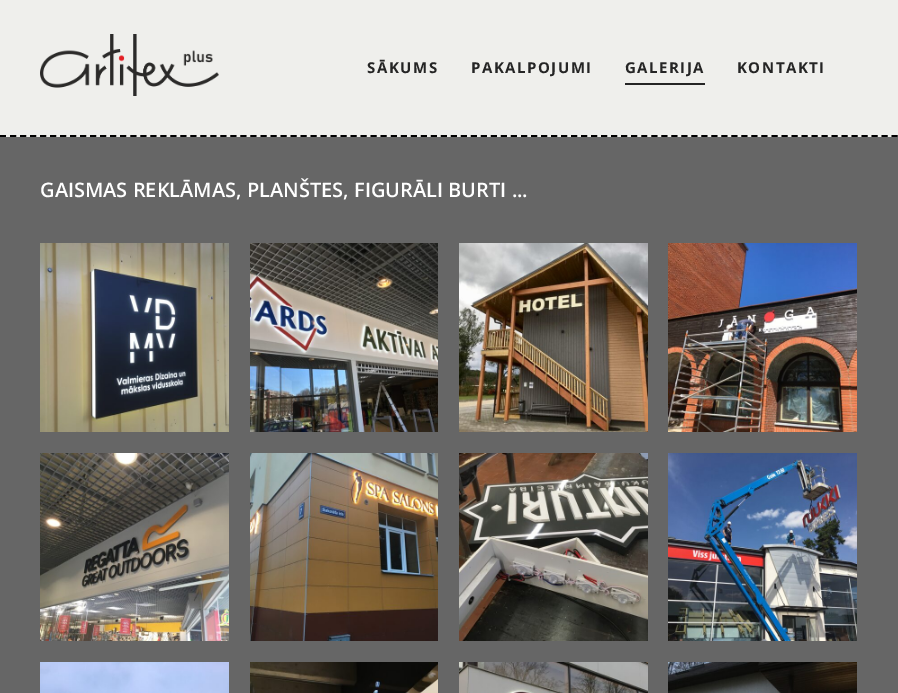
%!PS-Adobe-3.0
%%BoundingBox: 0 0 898 693
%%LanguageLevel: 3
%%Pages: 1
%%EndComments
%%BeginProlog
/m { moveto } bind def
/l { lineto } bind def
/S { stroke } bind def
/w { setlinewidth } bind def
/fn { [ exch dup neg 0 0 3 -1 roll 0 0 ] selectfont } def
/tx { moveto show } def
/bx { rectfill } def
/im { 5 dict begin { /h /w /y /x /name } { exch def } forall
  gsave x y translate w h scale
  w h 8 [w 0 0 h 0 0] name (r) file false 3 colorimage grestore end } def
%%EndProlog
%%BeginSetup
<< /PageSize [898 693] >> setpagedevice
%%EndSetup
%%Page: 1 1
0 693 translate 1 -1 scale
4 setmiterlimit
0.937 0.937 0.925 setrgbcolor
0 0 898 693 bx
0 setgray
2 w
[6 4.02] 0 setdash
0 136 m 898 136 l S
(image0.raw) 40 34 179 62 im
/OpenSans-Bold 15 fn
0.145 setgray
367 73 m 1.5 0 (SĀKUMS) ashow
471 73 m 1.5 0 (PAKALPOJUMI) ashow
625 83 80 2 bx
625 73 m 1.5 0 (GALERIJA) ashow
737 73 m 1.5 0 (KONTAKTI) ashow
0.4 setgray
0 137 898 556 bx
/OpenSans-SemiBold 20 fn
1 setgray
(GAISMAS REKLĀMAS, PLANŠTES, FIGURĀLI BURTI ...) 40 197 tx
(image1.raw) 40 243 189 189 im
(image2.raw) 250 243 188 189 im
(image3.raw) 459 243 189 189 im
(image4.raw) 668 243 189 189 im
(image5.raw) 40 453 189 188 im
(image6.raw) 250 453 188 188 im
(image7.raw) 459 453 189 188 im
(image8.raw) 668 453 189 188 im
(image9.raw) 40 662 189 31 im
(image10.raw) 250 662 188 31 im
(image11.raw) 459 662 189 31 im
(image12.raw) 668 662 189 31 im
showpage
%%EOF
